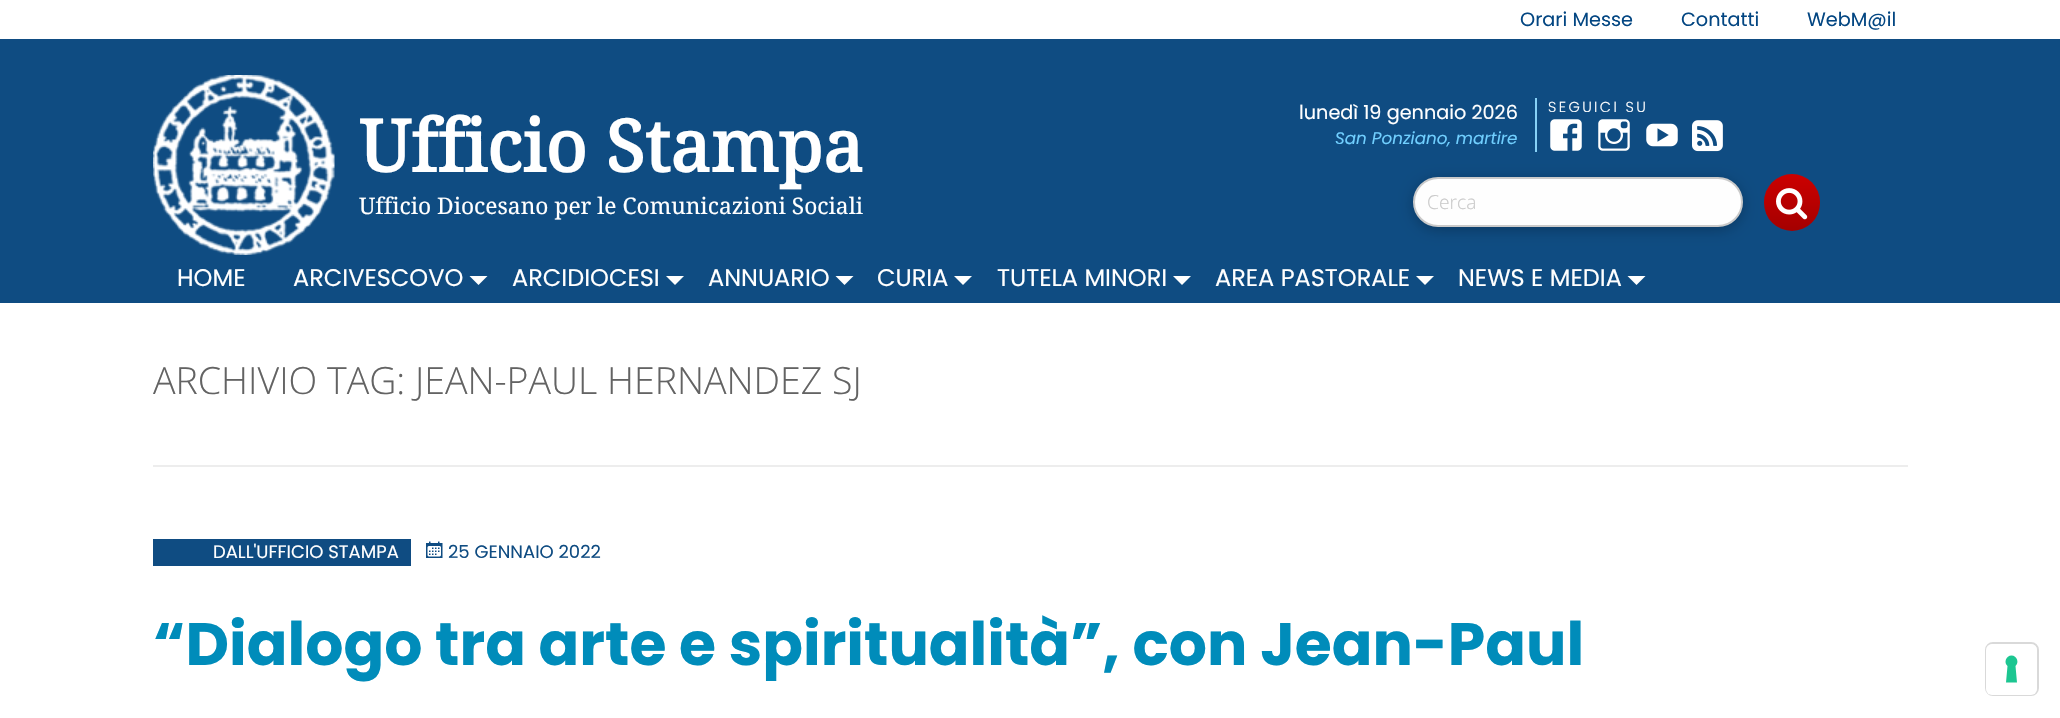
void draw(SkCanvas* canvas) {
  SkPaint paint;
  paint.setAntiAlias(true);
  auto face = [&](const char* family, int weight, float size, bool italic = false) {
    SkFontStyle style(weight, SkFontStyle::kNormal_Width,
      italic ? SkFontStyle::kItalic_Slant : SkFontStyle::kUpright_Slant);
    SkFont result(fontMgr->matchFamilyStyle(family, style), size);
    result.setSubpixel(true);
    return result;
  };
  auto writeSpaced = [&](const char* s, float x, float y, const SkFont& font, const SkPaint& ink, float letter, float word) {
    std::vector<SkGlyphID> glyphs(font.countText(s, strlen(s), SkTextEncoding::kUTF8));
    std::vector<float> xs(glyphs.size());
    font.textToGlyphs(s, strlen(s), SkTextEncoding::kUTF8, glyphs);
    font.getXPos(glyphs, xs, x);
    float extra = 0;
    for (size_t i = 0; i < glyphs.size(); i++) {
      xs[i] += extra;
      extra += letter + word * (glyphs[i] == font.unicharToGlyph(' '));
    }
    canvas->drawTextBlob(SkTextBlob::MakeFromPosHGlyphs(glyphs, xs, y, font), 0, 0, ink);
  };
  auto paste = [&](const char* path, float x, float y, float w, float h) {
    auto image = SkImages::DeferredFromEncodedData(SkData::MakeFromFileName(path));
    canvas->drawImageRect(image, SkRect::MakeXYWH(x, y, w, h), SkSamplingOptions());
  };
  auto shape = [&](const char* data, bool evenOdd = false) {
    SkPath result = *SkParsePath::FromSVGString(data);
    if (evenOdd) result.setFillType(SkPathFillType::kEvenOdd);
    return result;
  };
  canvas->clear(0xffffffff);
  paint.setColor(0xff0f4c82);
  canvas->drawRect(SkRect::MakeXYWH(0, 39, 2060, 264), paint);
  paste("img/1.png", 153, 75, 182, 180);
  paint.setColor(0xff87d1f6);
  canvas->drawRect(SkRect::MakeXYWH(1535, 98, 2, 54), paint);
  paste("img/2.png", 1550, 119, 32, 32);
  paste("img/3.png", 1598, 119, 32, 32);
  paste("img/4.png", 1646, 123, 32, 24);
  paste("img/5.png", 1692, 120, 31, 32);
  paint.setColor(0x3d000000);
  paint.setMaskFilter(SkMaskFilter::MakeBlur(kNormal_SkBlurStyle, 7));
  canvas->drawRoundRect(SkRect::MakeXYWH(1413, 180, 330, 50), 25, 25, paint);
  paint.setMaskFilter(nullptr);
  paint.setColor(0xfffefefe);
  canvas->drawRoundRect(SkRect::MakeXYWH(1414, 178, 328, 48), 24, 24, paint);
  paint.setStroke(true);
  paint.setStrokeWidth(2);
  paint.setColor(0xffcacaca);
  canvas->drawRoundRect(SkRect::MakeXYWH(1414, 178, 328, 48), 24, 24, paint);
  paint.setStroke(false);
  {
    const SkColor colors[] = {0xffcc0000, 0xffa40000};
    const float stops[] = {0, 1};
    const SkPoint ends[] = {{1792, 174}, {1792, 231}};
    paint.setShader(SkGradientShader::MakeLinear(ends, colors, stops, 2, SkTileMode::kClamp));
    paint.setAlpha(255);
  }
  canvas->drawRoundRect(SkRect::MakeXYWH(1764, 174, 56, 57), 28, 28, paint);
  paste("img/6.png", 1776, 188, 32, 32);
  paint.setShader(nullptr);
  paint.setColor(0xffffffff);
  canvas->drawPath(shape("M469.5 276H487.5L478.5 285Z"), paint);
  canvas->drawPath(shape("M666 276H684L675 285Z"), paint);
  canvas->drawPath(shape("M835.5 276H853.5L844.5 285Z"), paint);
  canvas->drawPath(shape("M954 276H972L963 285Z"), paint);
  canvas->drawPath(shape("M1173 276H1191L1182 285Z"), paint);
  canvas->drawPath(shape("M1416 276H1434L1425 285Z"), paint);
  canvas->drawPath(shape("M1627.5 276H1645.5L1636.5 285Z"), paint);
  paint.setColor(0xffededed);
  canvas->drawRect(SkRect::MakeXYWH(153, 465, 1755, 2), paint);
  paint.setColor(0xff0f4c82);
  canvas->drawRect(SkRect::MakeXYWH(153, 539, 258, 27), paint);
  paste("img/7.png", 426, 541, 17, 17);
  paint.setStroke(true);
  paint.setColor(0xffd9d9d9);
  canvas->drawRoundRect(SkRect::MakeXYWH(1986, 643, 52, 52), 7, 7, paint);
  paint.setStroke(false);
  paint.setColor(0xffffffff);
  canvas->drawRoundRect(SkRect::MakeXYWH(1986, 644, 51, 51), 6, 6, paint);
  paint.setColor(0xff1cc691);
  canvas->drawPath(shape("M2011.5 655.5C2017 655.5 2019.5 662.5 2015.5 666L2017 682.5H2006L2007.5 666C2003.5 662.5 2006 655.5 2011.5 655.5Z", true), paint);
  auto f0 = face("Poppins", 400, 19.25f);
  paint.setColor(0xff034682);
  {
    const struct { const char* s; float x, y; } items[] = {
      {"Orari Messe", 1520, 26},
      {"Contatti", 1681, 26},
      {"WebM@il", 1807, 26},
    };
    for (auto [s, x, y] : items) {
      canvas->drawString(s, x, y, f0, paint);
    }
  }
  auto f1 = face("Noto Serif", 700, 72);
  paint.setColor(0xffffffff);
  canvas->drawString("Ufficio Stampa", 359, 172, f1, paint);
  auto f2 = face("Noto Serif", 400, 22.8f);
  canvas->drawString("Ufficio Diocesano per le Comunicazioni Sociali", 359, 214, f2, paint);
  canvas->drawString("lunedì 19 gennaio 2026", 1299, 119, f0, paint);
  auto f3 = face("Poppins", 400, 16.75f, true);
  paint.setColor(0xff70cfff);
  canvas->drawString("San Ponziano, martire", 1335, 144, f3, paint);
  auto f4 = face("Poppins", 300, 14.5f);
  paint.setColor(0xffffffff);
  writeSpaced("SEGUICI SU", 1548, 112, f4, paint, 2.4f, 0);
  auto f5 = face("Open Sans", 300, 19.25f);
  paint.setColor(0xffcacaca);
  canvas->drawString("Cerca", 1427, 209, f5, paint);
  auto f6 = face("Poppins", 400, 24);
  paint.setColor(0xffffffff);
  {
    const struct { const char* s; float x, y; } items[] = {
      {"HOME", 177, 286},
      {"ARCIVESCOVO", 293, 286},
      {"ARCIDIOCESI", 512, 286},
      {"ANNUARIO", 708, 286},
      {"CURIA", 877, 286},
      {"TUTELA MINORI", 997, 286},
      {"AREA PASTORALE", 1215, 286},
      {"NEWS E MEDIA", 1458, 286},
    };
    for (auto [s, x, y] : items) {
      canvas->drawString(s, x, y, f6, paint);
    }
  }
  auto f7 = face("Open Sans", 300, 37.5f);
  paint.setColor(0xff636363);
  canvas->drawString("ARCHIVIO TAG: JEAN-PAUL HERNANDEZ SJ", 153, 394, f7, paint);
  auto f8 = face("Poppins", 400, 18);
  paint.setColor(0xffffffff);
  canvas->drawString("DALL'UFFICIO STAMPA", 213, 558, f8, paint);
  paint.setColor(0xff0f4c82);
  canvas->drawString("25 GENNAIO 2022", 448, 558, f8, paint);
  auto f9 = face("Poppins", 700, 60);
  paint.setColor(0xff008cba);
  canvas->drawString("“Dialogo tra arte e spiritualità”, con Jean-Paul", 153, 665, f9, paint);
}
